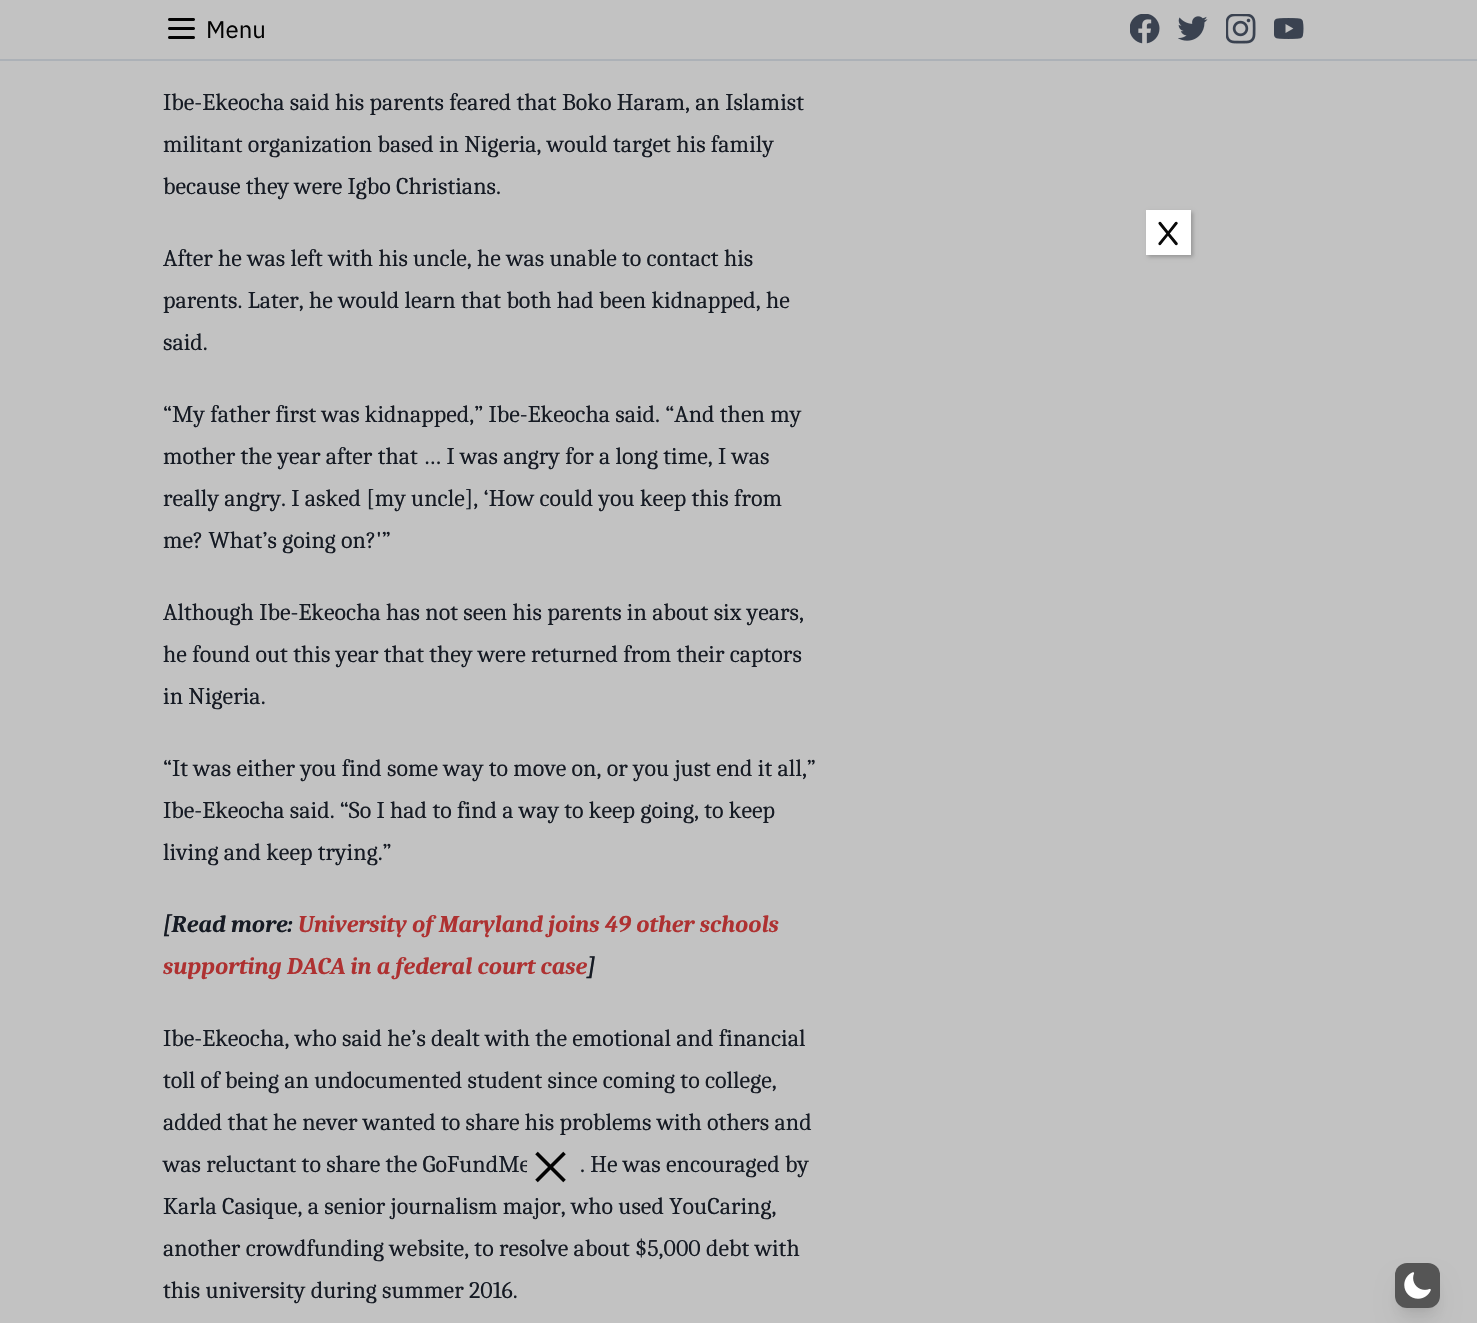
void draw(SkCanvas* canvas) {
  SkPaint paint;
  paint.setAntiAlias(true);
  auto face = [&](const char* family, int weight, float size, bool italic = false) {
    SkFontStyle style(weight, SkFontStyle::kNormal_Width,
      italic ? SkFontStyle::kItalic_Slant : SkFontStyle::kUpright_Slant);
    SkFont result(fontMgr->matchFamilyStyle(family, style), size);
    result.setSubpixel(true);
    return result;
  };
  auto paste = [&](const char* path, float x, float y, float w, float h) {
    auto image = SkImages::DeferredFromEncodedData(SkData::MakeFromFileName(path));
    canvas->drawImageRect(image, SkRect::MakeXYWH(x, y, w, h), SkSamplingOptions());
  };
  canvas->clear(0xffc2c2c2);
  paint.setColor(0xffacb1b7);
  canvas->drawRect(SkRect::MakeXYWH(0, 59, 1477, 2), paint);
  paste("img/1.png", 168, 18, 27, 21);
  paste("img/2.png", 1130, 14, 30, 30);
  paste("img/3.png", 1178, 16, 30, 25);
  paste("img/4.png", 1226, 14, 30, 30);
  paste("img/5.png", 1274, 18, 30, 21);
  paint.setColor(0x3b020202);
  paint.setMaskFilter(SkMaskFilter::MakeBlur(kNormal_SkBlurStyle, 2));
  canvas->drawRect(SkRect::MakeXYWH(1148, 212, 45, 45), paint);
  paint.setMaskFilter(nullptr);
  paint.setColor(0xffffffff);
  canvas->drawRect(SkRect::MakeXYWH(1146, 210, 45, 45), paint);
  paste("img/6.png", 535, 1151, 31, 32);
  paint.setColor(0x1a000000);
  paint.setMaskFilter(SkMaskFilter::MakeBlur(kNormal_SkBlurStyle, 4.5f));
  canvas->drawRoundRect(SkRect::MakeXYWH(1401, 1275, 33, 33), 6, 6, paint);
  paint.setMaskFilter(nullptr);
  paint.setMaskFilter(SkMaskFilter::MakeBlur(kNormal_SkBlurStyle, 11));
  canvas->drawRoundRect(SkRect::MakeXYWH(1400, 1283, 36, 36), 8, 8, paint);
  paint.setMaskFilter(nullptr);
  paint.setColor(0xff555555);
  canvas->drawRoundRect(SkRect::MakeXYWH(1395, 1263, 45, 45), 12, 12, paint);
  paste("img/7.png", 1404, 1272, 27, 27);
  auto f0 = face("IBM Plex Sans", 400, 24);
  paint.setColor(0xff030303);
  canvas->drawString("Menu", 206, 38, f0, paint);
  auto f1 = face("Caladea", 400, 24);
  paint.setColor(0xff161b24);
  {
    const struct { const char* s; float x, y; } items[] = {
      {"Ibe-Ekeocha said his parents feared that Boko Haram, an Islamist", 163, 110},
      {"militant organization based in Nigeria, would target his family", 163, 152},
      {"because they were Igbo Christians.", 163, 194},
      {"After he was left with his uncle, he was unable to contact his", 163, 266},
      {"parents. Later, he would learn that both had been kidnapped, he", 163, 308},
      {"said.", 163, 350},
      {"“My father first was kidnapped,” Ibe-Ekeocha said. “And then my", 163, 422},
      {"mother the year after that … I was angry for a long time, I was", 163, 464},
      {"really angry. I asked [my uncle], ‘How could you keep this from", 163, 506},
      {"me? What’s going on?'”", 163, 548},
      {"Although Ibe-Ekeocha has not seen his parents in about six years,", 163, 620},
      {"he found out this year that they were returned from their captors", 163, 662},
      {"in Nigeria.", 163, 704},
      {"“It was either you find some way to move on, or you just end it all,”", 163, 776},
      {"Ibe-Ekeocha said. “So I had to find a way to keep going, to keep", 163, 818},
      {"living and keep trying.”", 163, 860},
    };
    for (auto [s, x, y] : items) {
      canvas->drawString(s, x, y, f1, paint);
    }
  }
  auto f2 = face("Caladea", 700, 24, true);
  canvas->drawString("[Read more:", 163, 932, f2, paint);
  paint.setColor(0xffae3131);
  canvas->drawString("University of Maryland joins 49 other schools", 298, 932, f2, paint);
  canvas->drawString("supporting DACA in a federal court case", 163, 974, f2, paint);
  paint.setColor(0xff161b24);
  canvas->drawString("]", 587, 974, f2, paint);
  {
    const struct { const char* s; float x, y; } items[] = {
      {"Ibe-Ekeocha, who said he’s dealt with the emotional and financial", 163, 1046},
      {"toll of being an undocumented student since coming to college,", 163, 1088},
      {"added that he never wanted to share his problems with others and", 163, 1130},
      {"was reluctant to share the GoFundMe", 163, 1172},
      {". He was encouraged by", 580, 1172},
      {"Karla Casique, a senior journalism major, who used YouCaring,", 163, 1214},
      {"another crowdfunding website, to resolve about $5,000 debt with", 163, 1256},
      {"this university during summer 2016.", 163, 1298},
    };
    for (auto [s, x, y] : items) {
      canvas->drawString(s, x, y, f1, paint);
    }
  }
  auto f3 = face("Varela Round", 400, 33);
  paint.setColor(0xff0a0a0a);
  canvas->drawString("X", 1157, 245, f3, paint);
  paint.setColor(0xffc2c2c2);
  canvas->drawRect(SkRect::MakeXYWH(527, 1161, 3, 11), paint);
}
